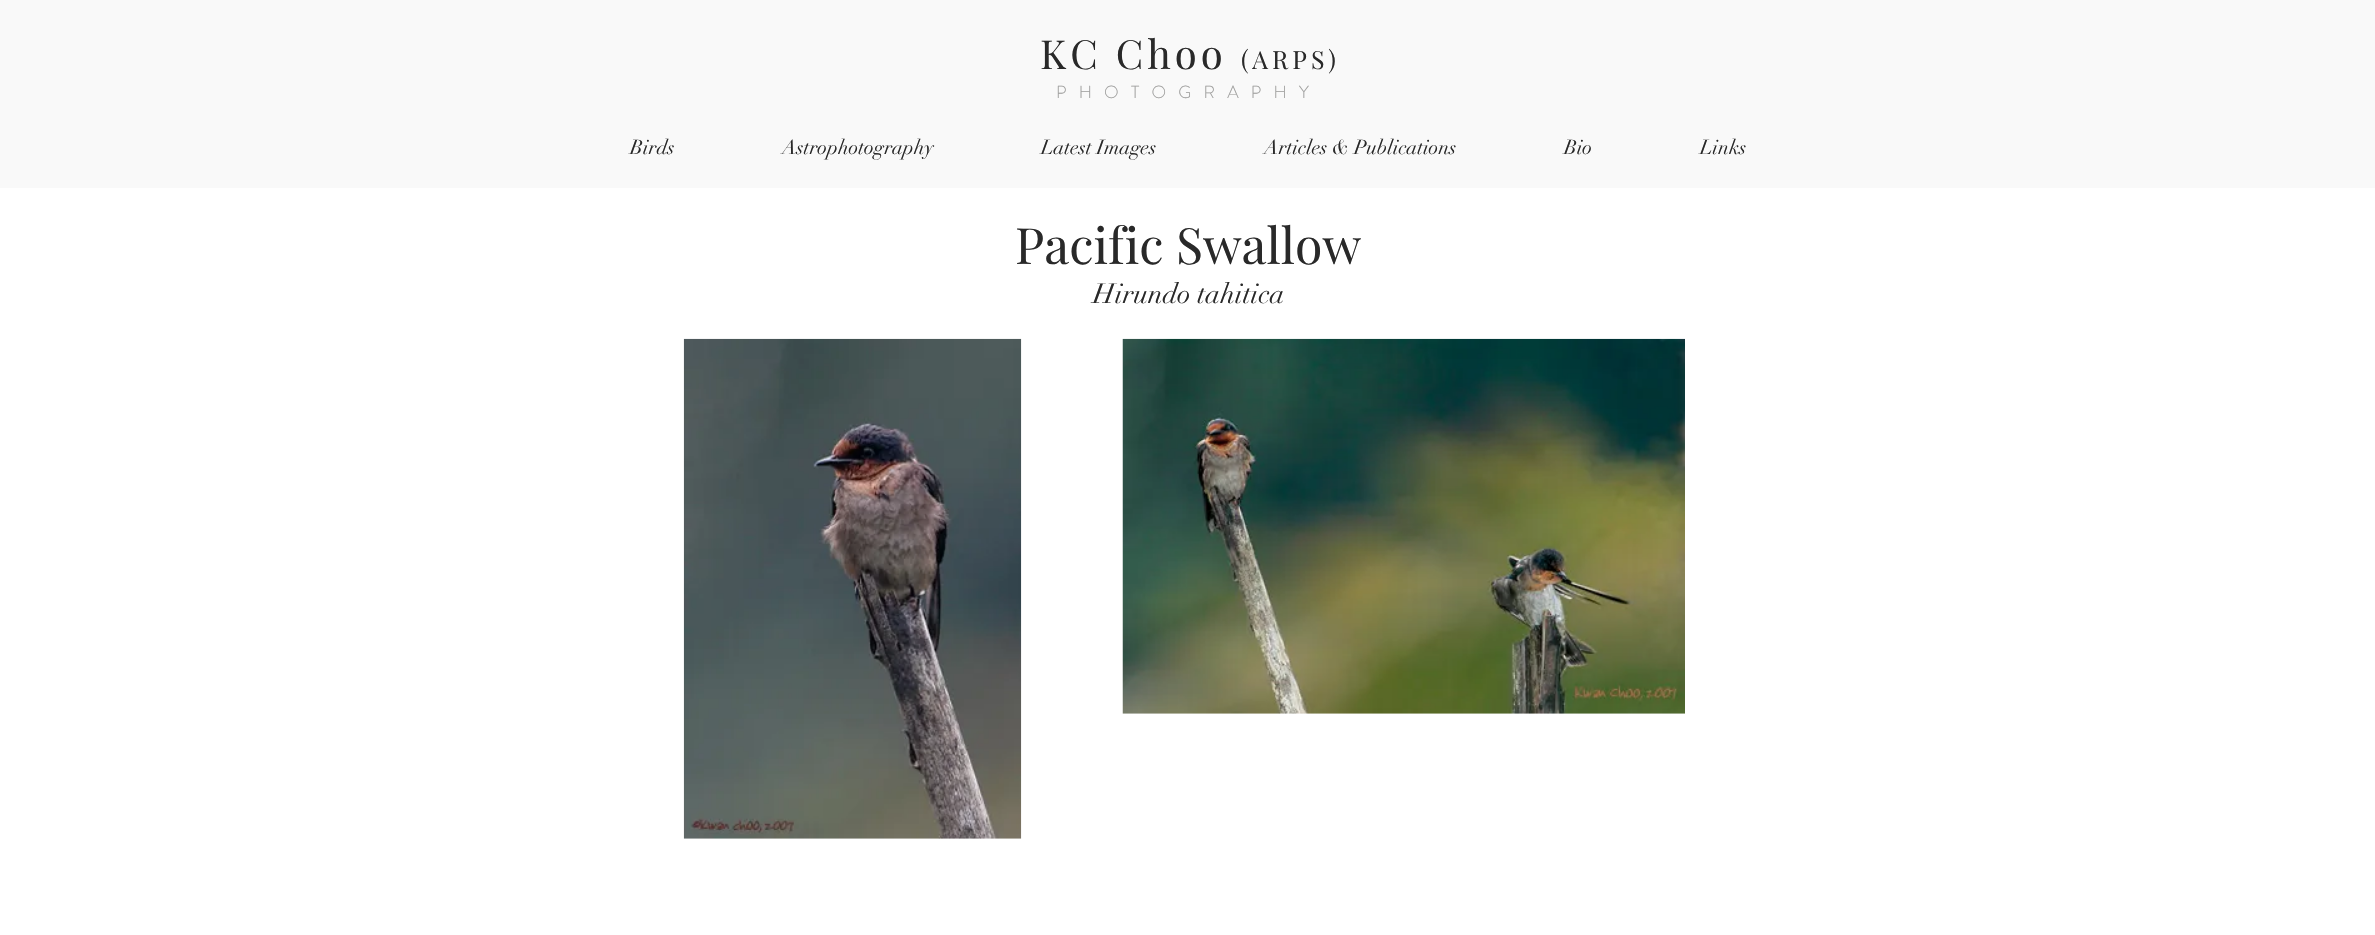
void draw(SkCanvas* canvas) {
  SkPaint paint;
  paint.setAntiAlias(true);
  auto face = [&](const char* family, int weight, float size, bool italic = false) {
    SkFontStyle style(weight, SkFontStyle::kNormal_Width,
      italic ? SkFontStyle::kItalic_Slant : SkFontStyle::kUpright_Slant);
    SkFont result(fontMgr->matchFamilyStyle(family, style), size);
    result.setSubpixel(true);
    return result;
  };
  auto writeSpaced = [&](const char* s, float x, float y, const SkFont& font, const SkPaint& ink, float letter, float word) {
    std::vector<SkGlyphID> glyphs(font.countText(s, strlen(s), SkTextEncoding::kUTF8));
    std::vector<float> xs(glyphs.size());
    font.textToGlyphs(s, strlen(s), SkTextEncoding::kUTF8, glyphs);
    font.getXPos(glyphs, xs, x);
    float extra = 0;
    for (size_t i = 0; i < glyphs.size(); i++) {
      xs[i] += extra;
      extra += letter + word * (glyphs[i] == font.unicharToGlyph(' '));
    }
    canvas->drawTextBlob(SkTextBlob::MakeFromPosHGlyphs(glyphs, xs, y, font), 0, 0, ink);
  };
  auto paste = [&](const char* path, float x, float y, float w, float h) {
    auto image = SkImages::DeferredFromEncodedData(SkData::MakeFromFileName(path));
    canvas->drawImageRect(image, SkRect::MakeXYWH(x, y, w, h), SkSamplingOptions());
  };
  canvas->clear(0xffffffff);
  paint.setColor(0xfff9f9f9);
  canvas->drawRect(SkRect::MakeXYWH(0, 0, 2375, 188), paint);
  paste("img/1.png", 683, 338, 339, 501);
  paste("img/2.png", 1122, 338, 563, 376);
  auto f0 = face("Playfair Display", 400, 40);
  paint.setColor(0xff292929);
  writeSpaced("KC Choo", 1040, 69, f0, paint, 4, 0);
  auto f1 = face("Playfair Display", 400, 25);
  writeSpaced("(ARPS)", 1241, 69, f1, paint, 4, 0);
  auto f2 = face("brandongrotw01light", 300, 17.5f);
  paint.setColor(0xffa0a09f);
  writeSpaced("PHOTOGRAPHY", 1056, 98, f2, paint, 12.25f, 0);
  auto f3 = face("didot", 400, 20);
  paint.setColor(0xff292929);
  {
    const struct { const char* s; float x, y; } items[] = {
      {"Birds", 630, 154},
      {"Astrophotography", 782, 154},
      {"Latest Images", 1041, 154},
      {"Articles & Publications", 1264, 154},
      {"Bio", 1564, 154},
      {"Links", 1700, 154},
    };
    for (auto [s, x, y] : items) {
      canvas->drawString(s, x, y, f3, paint);
    }
  }
  auto f4 = face("Playfair Display", 400, 50);
  canvas->drawString("Pacific Swallow", 1015, 264, f4, paint);
  auto f5 = face("didot", 400, 27.5f);
  canvas->drawString("Hirundo tahitica", 1093, 303, f5, paint);
}
